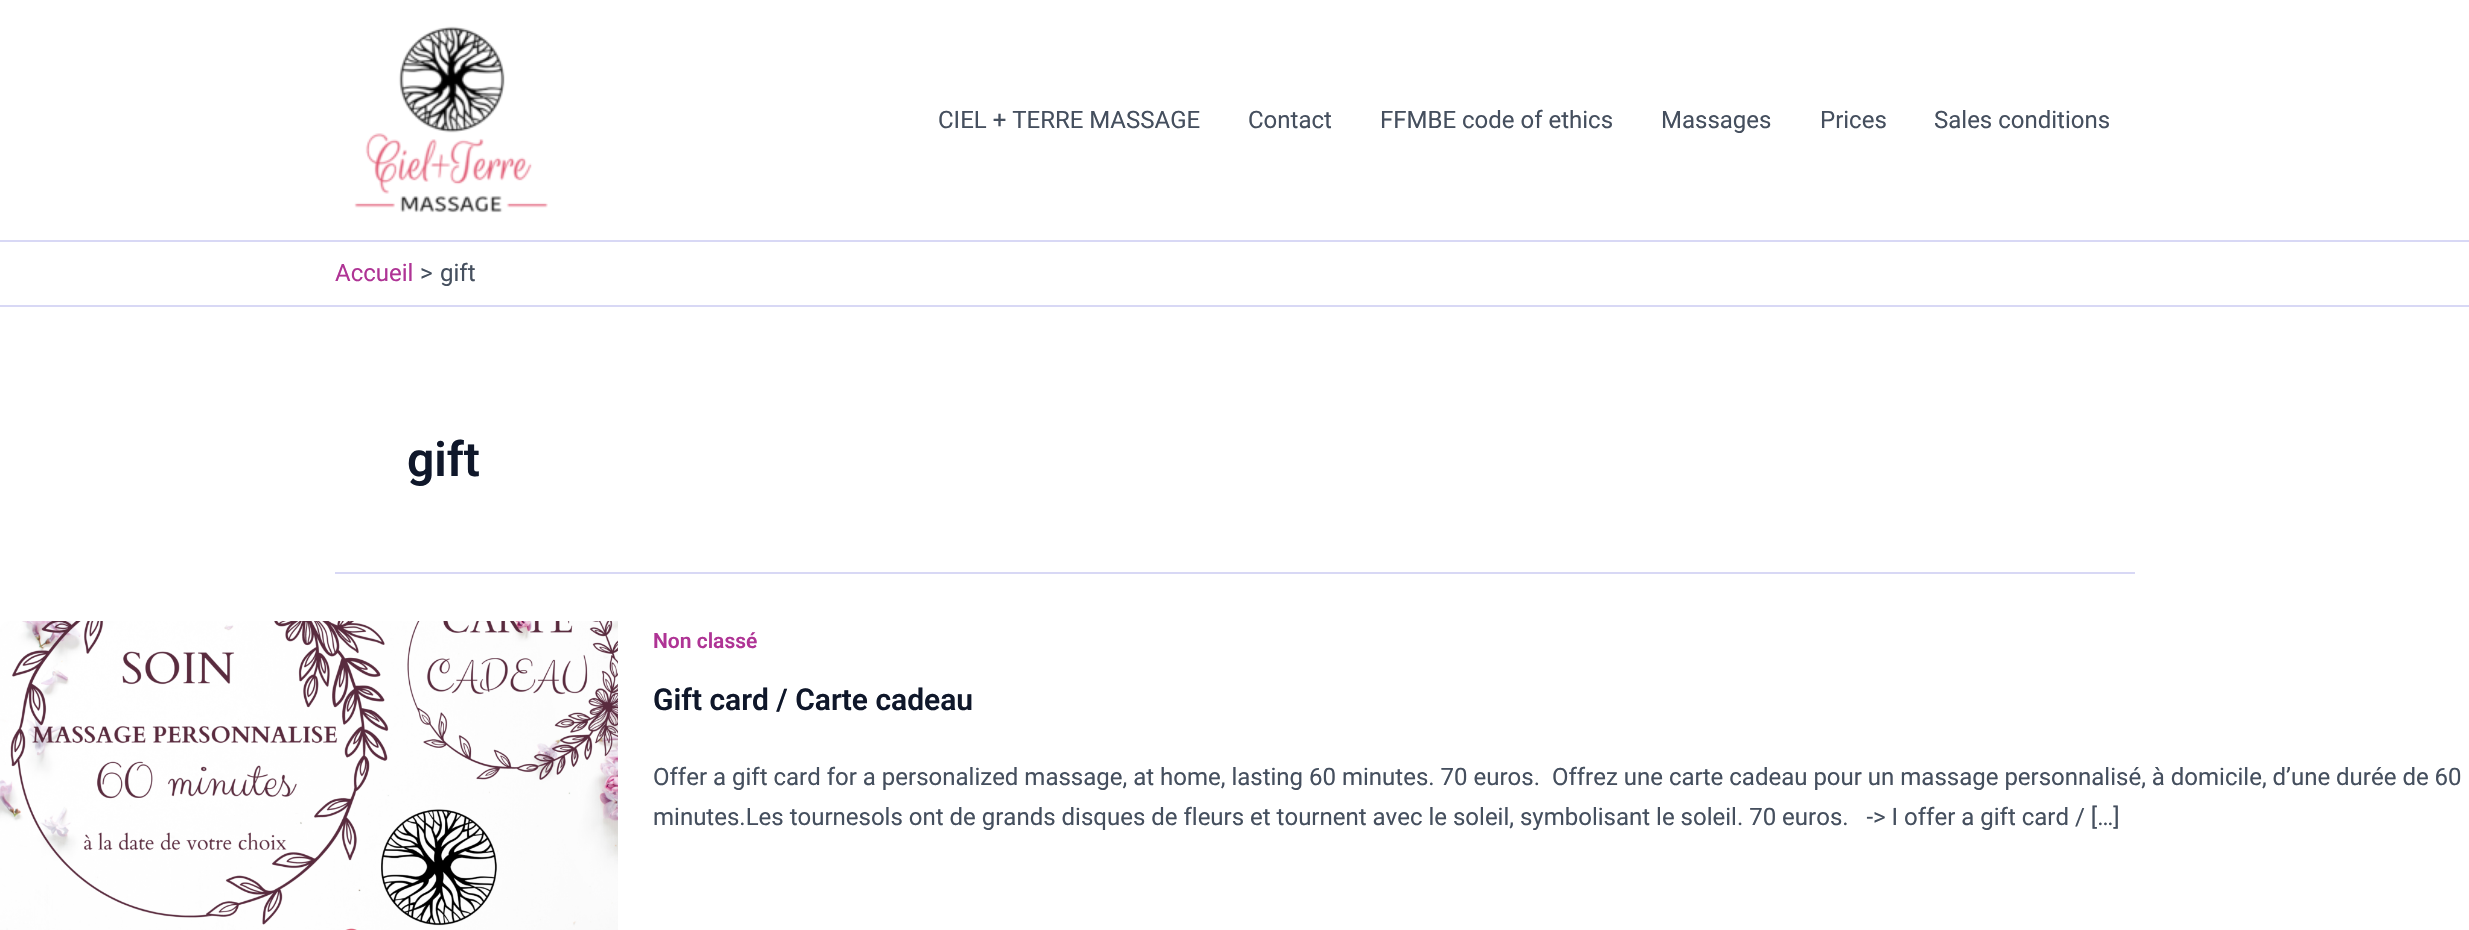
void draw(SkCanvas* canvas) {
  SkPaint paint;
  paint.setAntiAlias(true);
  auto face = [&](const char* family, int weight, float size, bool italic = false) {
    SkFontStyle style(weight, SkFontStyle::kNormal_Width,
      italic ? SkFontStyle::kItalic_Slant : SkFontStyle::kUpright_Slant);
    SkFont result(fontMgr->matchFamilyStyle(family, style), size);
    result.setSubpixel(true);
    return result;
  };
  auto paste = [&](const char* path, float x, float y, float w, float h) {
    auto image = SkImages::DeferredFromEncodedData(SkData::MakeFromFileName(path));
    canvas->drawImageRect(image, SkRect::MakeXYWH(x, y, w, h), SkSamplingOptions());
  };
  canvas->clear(0xffffffff);
  paint.setColor(0xffd8d8f5);
  canvas->drawRect(SkRect::MakeXYWH(0, 240, 2469, 2), paint);
  paste("img/1.png", 354, 26, 194, 187);
  canvas->drawRect(SkRect::MakeXYWH(0, 305, 2469, 2), paint);
  canvas->drawRect(SkRect::MakeXYWH(335, 572, 1800, 2), paint);
  paste("img/2.png", 0, 621, 618, 309);
  auto f0 = face("Roboto", 400, 24);
  paint.setColor(0xff454f5e);
  {
    const struct { const char* s; float x, y; } items[] = {
      {"CIEL + TERRE MASSAGE", 938, 128},
      {"Contact", 1248, 128},
      {"FFMBE code of ethics", 1380, 128},
      {"Massages", 1661, 128},
      {"Prices", 1820, 128},
      {"Sales conditions", 1934, 128},
    };
    for (auto [s, x, y] : items) {
      canvas->drawString(s, x, y, f0, paint);
    }
  }
  paint.setColor(0xffaf3495);
  canvas->drawString("Accueil", 335, 281, f0, paint);
  paint.setColor(0xff454f5e);
  canvas->drawString(">", 420, 281, f0, paint);
  canvas->drawString("gift", 440, 281, f0, paint);
  auto f1 = face("Roboto", 600, 48);
  paint.setColor(0xff0f172a);
  canvas->drawString("gift", 407, 476, f1, paint);
  auto f2 = face("Roboto", 600, 21);
  paint.setColor(0xffaf3495);
  canvas->drawString("Non classé", 653, 648, f2, paint);
  auto f3 = face("Roboto", 600, 30);
  paint.setColor(0xff0f172a);
  canvas->drawString("Gift card / Carte cadeau", 653, 710, f3, paint);
  paint.setColor(0xff454f5e);
  canvas->drawString("Offer a gift card for a personalized massage, at home, lasting 60 minutes. 70 euros.  Offrez une carte cadeau pour un massage personnalisé, à domicile, d’une durée de 60", 653, 785, f0, paint);
  canvas->drawString("minutes.Les tournesols ont de grands disques de fleurs et tournent avec le soleil, symbolisant le soleil. 70 euros.   -> I offer a gift card / […]", 653, 825, f0, paint);
}
